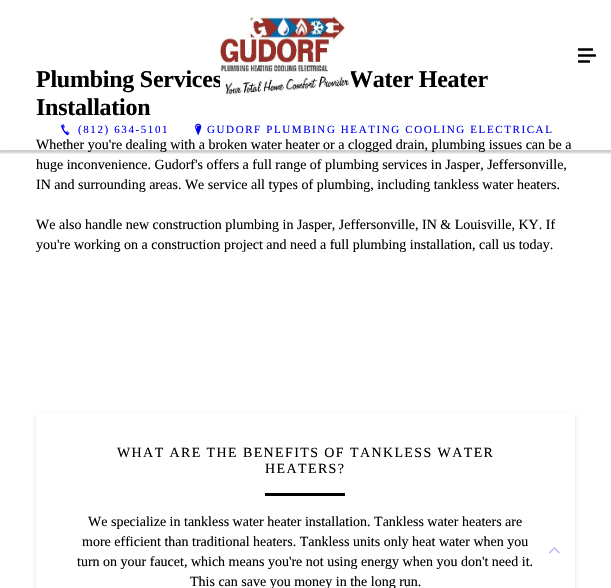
void draw(SkCanvas* canvas) {
  SkPaint paint;
  paint.setAntiAlias(true);
  auto face = [&](const char* family, int weight, float size, bool italic = false) {
    SkFontStyle style(weight, SkFontStyle::kNormal_Width,
      italic ? SkFontStyle::kItalic_Slant : SkFontStyle::kUpright_Slant);
    SkFont result(fontMgr->matchFamilyStyle(family, style), size);
    result.setSubpixel(true);
    return result;
  };
  auto writeSpaced = [&](const char* s, float x, float y, const SkFont& font, const SkPaint& ink, float letter, float word) {
    std::vector<SkGlyphID> glyphs(font.countText(s, strlen(s), SkTextEncoding::kUTF8));
    std::vector<float> xs(glyphs.size());
    font.textToGlyphs(s, strlen(s), SkTextEncoding::kUTF8, glyphs);
    font.getXPos(glyphs, xs, x);
    float extra = 0;
    for (size_t i = 0; i < glyphs.size(); i++) {
      xs[i] += extra;
      extra += letter + word * (glyphs[i] == font.unicharToGlyph(' '));
    }
    canvas->drawTextBlob(SkTextBlob::MakeFromPosHGlyphs(glyphs, xs, y, font), 0, 0, ink);
  };
  auto paste = [&](const char* path, float x, float y, float w, float h) {
    auto image = SkImages::DeferredFromEncodedData(SkData::MakeFromFileName(path));
    canvas->drawImageRect(image, SkRect::MakeXYWH(x, y, w, h), SkSamplingOptions());
  };
  auto shape = [&](const char* data, bool evenOdd = false) {
    SkPath result = *SkParsePath::FromSVGString(data);
    if (evenOdd) result.setFillType(SkPathFillType::kEvenOdd);
    return result;
  };
  canvas->clear(0xffffffff);
  canvas->save();
  canvas->clipPath(shape("M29 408H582V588H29ZM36 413H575V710H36Z", true), true);
  paint.setColor(0x1f000000);
  paint.setMaskFilter(SkMaskFilter::MakeBlur(kNormal_SkBlurStyle, 2));
  canvas->drawRect(SkRect::MakeXYWH(36, 415, 539, 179), paint);
  paint.setMaskFilter(nullptr);
  canvas->restore();
  paint.setColor(0xff000000);
  canvas->drawRect(SkRect::MakeXYWH(265, 493, 80, 3), paint);
  paste("img/2.png", 578, 48, 18, 15);
  canvas->save();
  canvas->clipRect(SkRect::MakeXYWH(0, 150, 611, 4));
  paint.setColor(0x33000000);
  paint.setMaskFilter(SkMaskFilter::MakeBlur(kNormal_SkBlurStyle, 1));
  canvas->drawRect(SkRect::MakeXYWH(-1, 113, 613, 40), paint);
  paint.setMaskFilter(nullptr);
  canvas->restore();
  paste("img/3.png", 61, 124, 9, 12);
  paste("img/4.png", 195, 123, 7, 13);
  auto f0 = face("Liberation Serif", 700, 24);
  paint.setColor(0xff000000);
  {
    const struct { const char* s; float x, y; } items[] = {
      {"Plumbing Services", 36, 87},
      {"Water Heater", 349, 87},
      {"Installation", 36, 115},
    };
    for (auto [s, x, y] : items) {
      writeSpaced(s, x, y, f0, paint, -0.25f, 0);
    }
  }
  auto f1 = face("Liberation Serif", 400, 14);
  {
    const struct { const char* s; float x, y; } items[] = {
      {"Whether you're dealing with a broken water heater or a clogged drain, plumbing issues can be a", 36, 149},
      {"huge inconvenience. Gudorf's offers a full range of plumbing services in Jasper, Jeffersonville,", 36, 169},
      {"IN and surrounding areas. We service all types of plumbing, including tankless water heaters.", 36, 189},
      {"We also handle new construction plumbing in Jasper, Jeffersonville, IN & Louisville, KY. If", 36, 229},
      {"you're working on a construction project and need a full plumbing installation, call us today.", 36, 249},
    };
    for (auto [s, x, y] : items) {
      canvas->drawString(s, x, y, f1, paint);
    }
  }
  writeSpaced("WHAT ARE THE BENEFITS OF TANKLESS WATER", 117, 457, f1, paint, 1.4f, 0);
  writeSpaced("HEATERS?", 265, 473, f1, paint, 1.4f, 0);
  {
    const struct { const char* s; float x, y; } items[] = {
      {"We specialize in tankless water heater installation. Tankless water heaters are", 88, 526},
      {"more efficient than traditional heaters. Tankless units only heat water when you", 82, 546},
      {"turn on your faucet, which means you're not using energy when you don't need it.", 77, 566},
      {"This can save you money in the long run.", 190, 586},
    };
    for (auto [s, x, y] : items) {
      canvas->drawString(s, x, y, f1, paint);
    }
  }
  paste("img/1.png", 220, 16, 131, 79);
  auto f2 = face("Liberation Serif", 400, 11);
  paint.setColor(0xff0000ee);
  writeSpaced("(812) 634-5101", 78, 133, f2, paint, 1.6f, 0);
  writeSpaced("GUDORF PLUMBING HEATING COOLING ELECTRICAL", 207, 133, f2, paint, 1.6f, 0);
  auto f3 = face("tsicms", 400, 14);
  paint.setColor(0xffb3b3fa);
  canvas->drawString("+", 549, 556, f3, paint);
}
